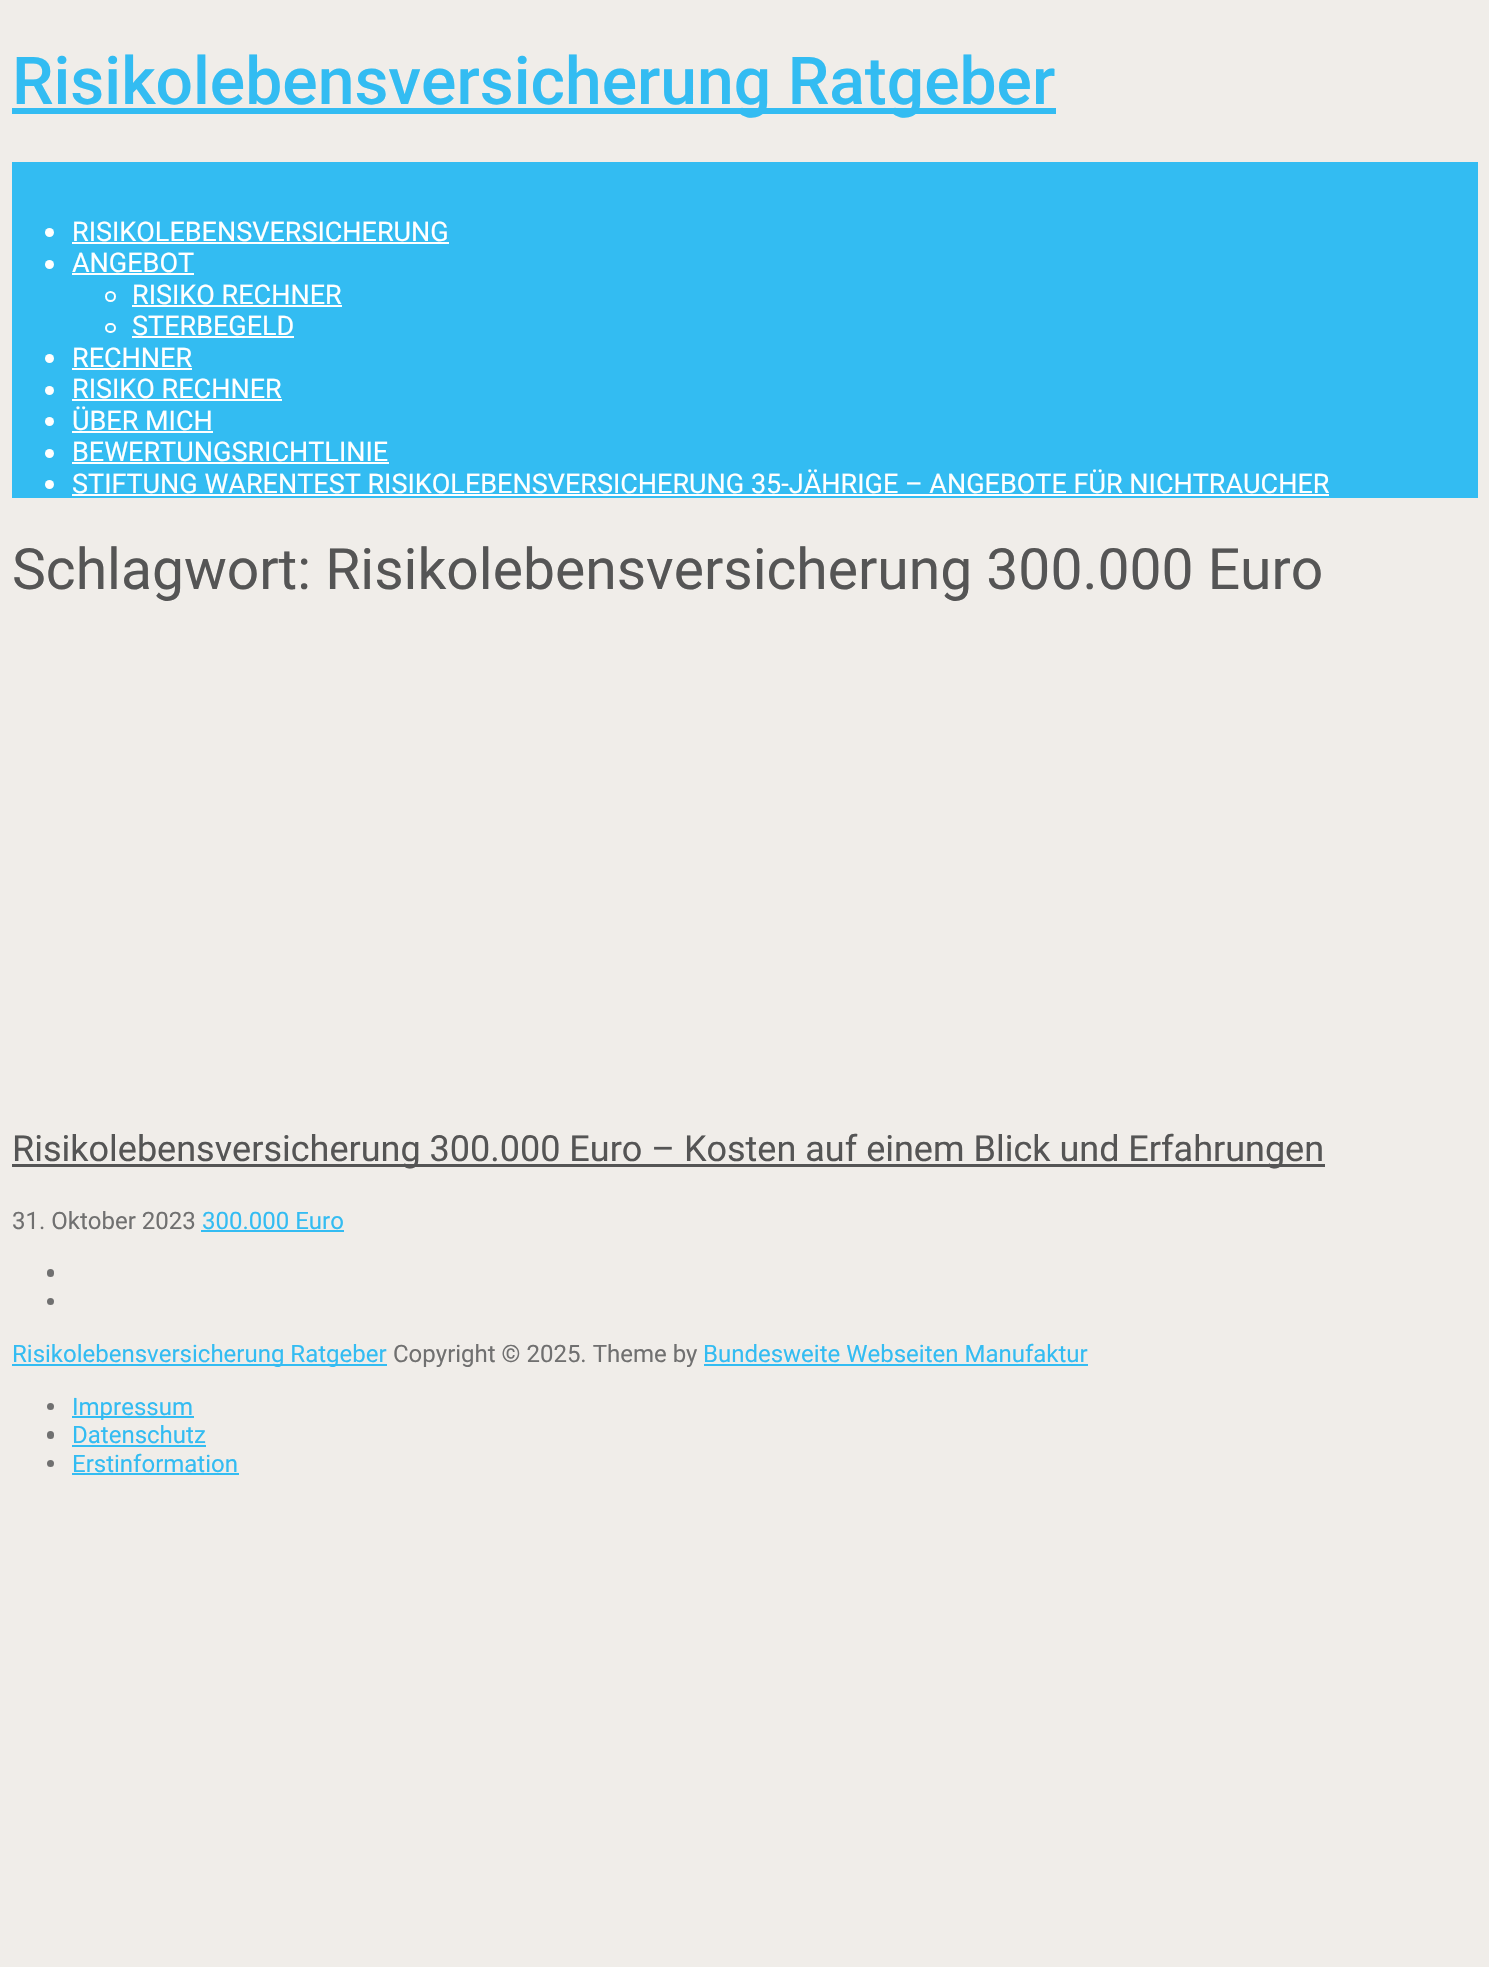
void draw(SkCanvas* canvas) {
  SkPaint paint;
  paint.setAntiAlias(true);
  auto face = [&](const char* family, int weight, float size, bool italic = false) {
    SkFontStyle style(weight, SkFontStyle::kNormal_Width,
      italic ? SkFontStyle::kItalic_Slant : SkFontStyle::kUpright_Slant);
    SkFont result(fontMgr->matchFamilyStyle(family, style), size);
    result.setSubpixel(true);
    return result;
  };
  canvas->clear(0xfff0ede9);
  paint.setColor(0xff33bcf2);
  canvas->drawRect(SkRect::MakeXYWH(12, 108, 1044, 6), paint);
  canvas->drawRect(SkRect::MakeXYWH(12, 162, 1466, 336), paint);
  paint.setColor(0xffffffff);
  canvas->drawCircle(49.5f, 232.5f, 4.5f, paint);
  canvas->drawRect(SkRect::MakeXYWH(72, 242, 377, 2), paint);
  canvas->drawCircle(49.5f, 264.5f, 4.5f, paint);
  canvas->drawRect(SkRect::MakeXYWH(72, 273, 122, 2), paint);
  paint.setStroke(true);
  paint.setStrokeWidth(2);
  canvas->drawCircle(110.5f, 296.5f, 4.5f, paint);
  paint.setStroke(false);
  canvas->drawRect(SkRect::MakeXYWH(132, 305, 210, 2), paint);
  paint.setStroke(true);
  canvas->drawRoundRect(SkRect::MakeXYWH(106, 324, 9, 8), 4, 4, paint);
  paint.setStroke(false);
  canvas->drawRect(SkRect::MakeXYWH(132, 336, 162, 2), paint);
  canvas->drawCircle(49.5f, 358.5f, 4.5f, paint);
  canvas->drawRect(SkRect::MakeXYWH(72, 368, 120, 2), paint);
  canvas->drawCircle(49.5f, 390.5f, 4.5f, paint);
  canvas->drawRect(SkRect::MakeXYWH(72, 399, 210, 2), paint);
  canvas->drawCircle(49.5f, 421.5f, 4.5f, paint);
  canvas->drawRect(SkRect::MakeXYWH(72, 431, 141, 2), paint);
  canvas->drawCircle(49.5f, 453.5f, 4.5f, paint);
  canvas->drawRect(SkRect::MakeXYWH(72, 462, 317, 2), paint);
  canvas->drawCircle(49.5f, 484.5f, 4.5f, paint);
  {
    const struct { float x, y, w, h; SkColor color; } items[] = {
      {72, 494, 1257, 2, 0xffffffff},
      {12, 1164, 1313, 3, 0xff555555},
      {201, 1230, 143, 2, 0xff33bcf2},
    };
    for (auto [x, y, w, h, color] : items) {
      paint.setColor(color);
      canvas->drawRect(SkRect::MakeXYWH(x, y, w, h), paint);
    }
  }
  paint.setColor(0xff707070);
  canvas->drawRoundRect(SkRect::MakeXYWH(47, 1269, 7, 8), 3.5f, 3.5f, paint);
  canvas->drawCircle(50.5f, 1301.5f, 3.5f, paint);
  paint.setColor(0xff33bcf2);
  canvas->drawRect(SkRect::MakeXYWH(12, 1364, 375, 2), paint);
  canvas->drawRect(SkRect::MakeXYWH(704, 1364, 384, 2), paint);
  paint.setColor(0xff707070);
  canvas->drawCircle(50.5f, 1406.5f, 3.5f, paint);
  paint.setColor(0xff33bcf2);
  canvas->drawRect(SkRect::MakeXYWH(72, 1416, 122, 2), paint);
  paint.setColor(0xff707070);
  canvas->drawRoundRect(SkRect::MakeXYWH(47, 1431, 7, 8), 3.5f, 3.5f, paint);
  paint.setColor(0xff33bcf2);
  canvas->drawRect(SkRect::MakeXYWH(72, 1445, 134, 2), paint);
  paint.setColor(0xff707070);
  canvas->drawCircle(50.5f, 1463.5f, 3.5f, paint);
  paint.setColor(0xff33bcf2);
  canvas->drawRect(SkRect::MakeXYWH(72, 1473, 167, 2), paint);
  auto f0 = face("Roboto", 500, 66);
  canvas->drawString("Risikolebensversicherung Ratgeber", 12, 104, f0, paint);
  auto f1 = face("Roboto", 400, 27);
  paint.setColor(0xffffffff);
  {
    const struct { const char* s; float x, y; } items[] = {
      {"RISIKOLEBENSVERSICHERUNG", 72, 241},
      {"ANGEBOT", 72, 272},
      {"RISIKO RECHNER", 132, 304},
      {"STERBEGELD", 132, 335},
      {"RECHNER", 72, 367},
      {"RISIKO RECHNER", 72, 398},
      {"ÜBER MICH", 72, 430},
      {"BEWERTUNGSRICHTLINIE", 72, 461},
      {"STIFTUNG WARENTEST RISIKOLEBENSVERSICHERUNG 35-JÄHRIGE – ANGEBOTE FÜR NICHTRAUCHER", 72, 493},
    };
    for (auto [s, x, y] : items) {
      canvas->drawString(s, x, y, f1, paint);
    }
  }
  auto f2 = face("Roboto", 400, 57);
  paint.setColor(0xff555555);
  canvas->drawString("Schlagwort: Risikolebensversicherung 300.000 Euro", 12, 589, f2, paint);
  auto f3 = face("Roboto", 400, 36);
  canvas->drawString("Risikolebensversicherung 300.000 Euro – Kosten auf einem Blick und Erfahrungen", 12, 1161, f3, paint);
  auto f4 = face("Roboto", 400, 24);
  paint.setColor(0xff707070);
  canvas->drawString("31. Oktober 2023", 12, 1229, f4, paint);
  paint.setColor(0xff33bcf2);
  canvas->drawString("300.000 Euro", 202, 1229, f4, paint);
  canvas->drawString("Risikolebensversicherung Ratgeber", 12, 1362, f4, paint);
  paint.setColor(0xff707070);
  canvas->drawString("Copyright © 2025. Theme by", 393, 1362, f4, paint);
  paint.setColor(0xff33bcf2);
  {
    const struct { const char* s; float x, y; } items[] = {
      {"Bundesweite Webseiten Manufaktur", 703, 1362},
      {"Impressum", 72, 1415},
      {"Datenschutz", 72, 1443},
      {"Erstinformation", 72, 1472},
    };
    for (auto [s, x, y] : items) {
      canvas->drawString(s, x, y, f4, paint);
    }
  }
}
